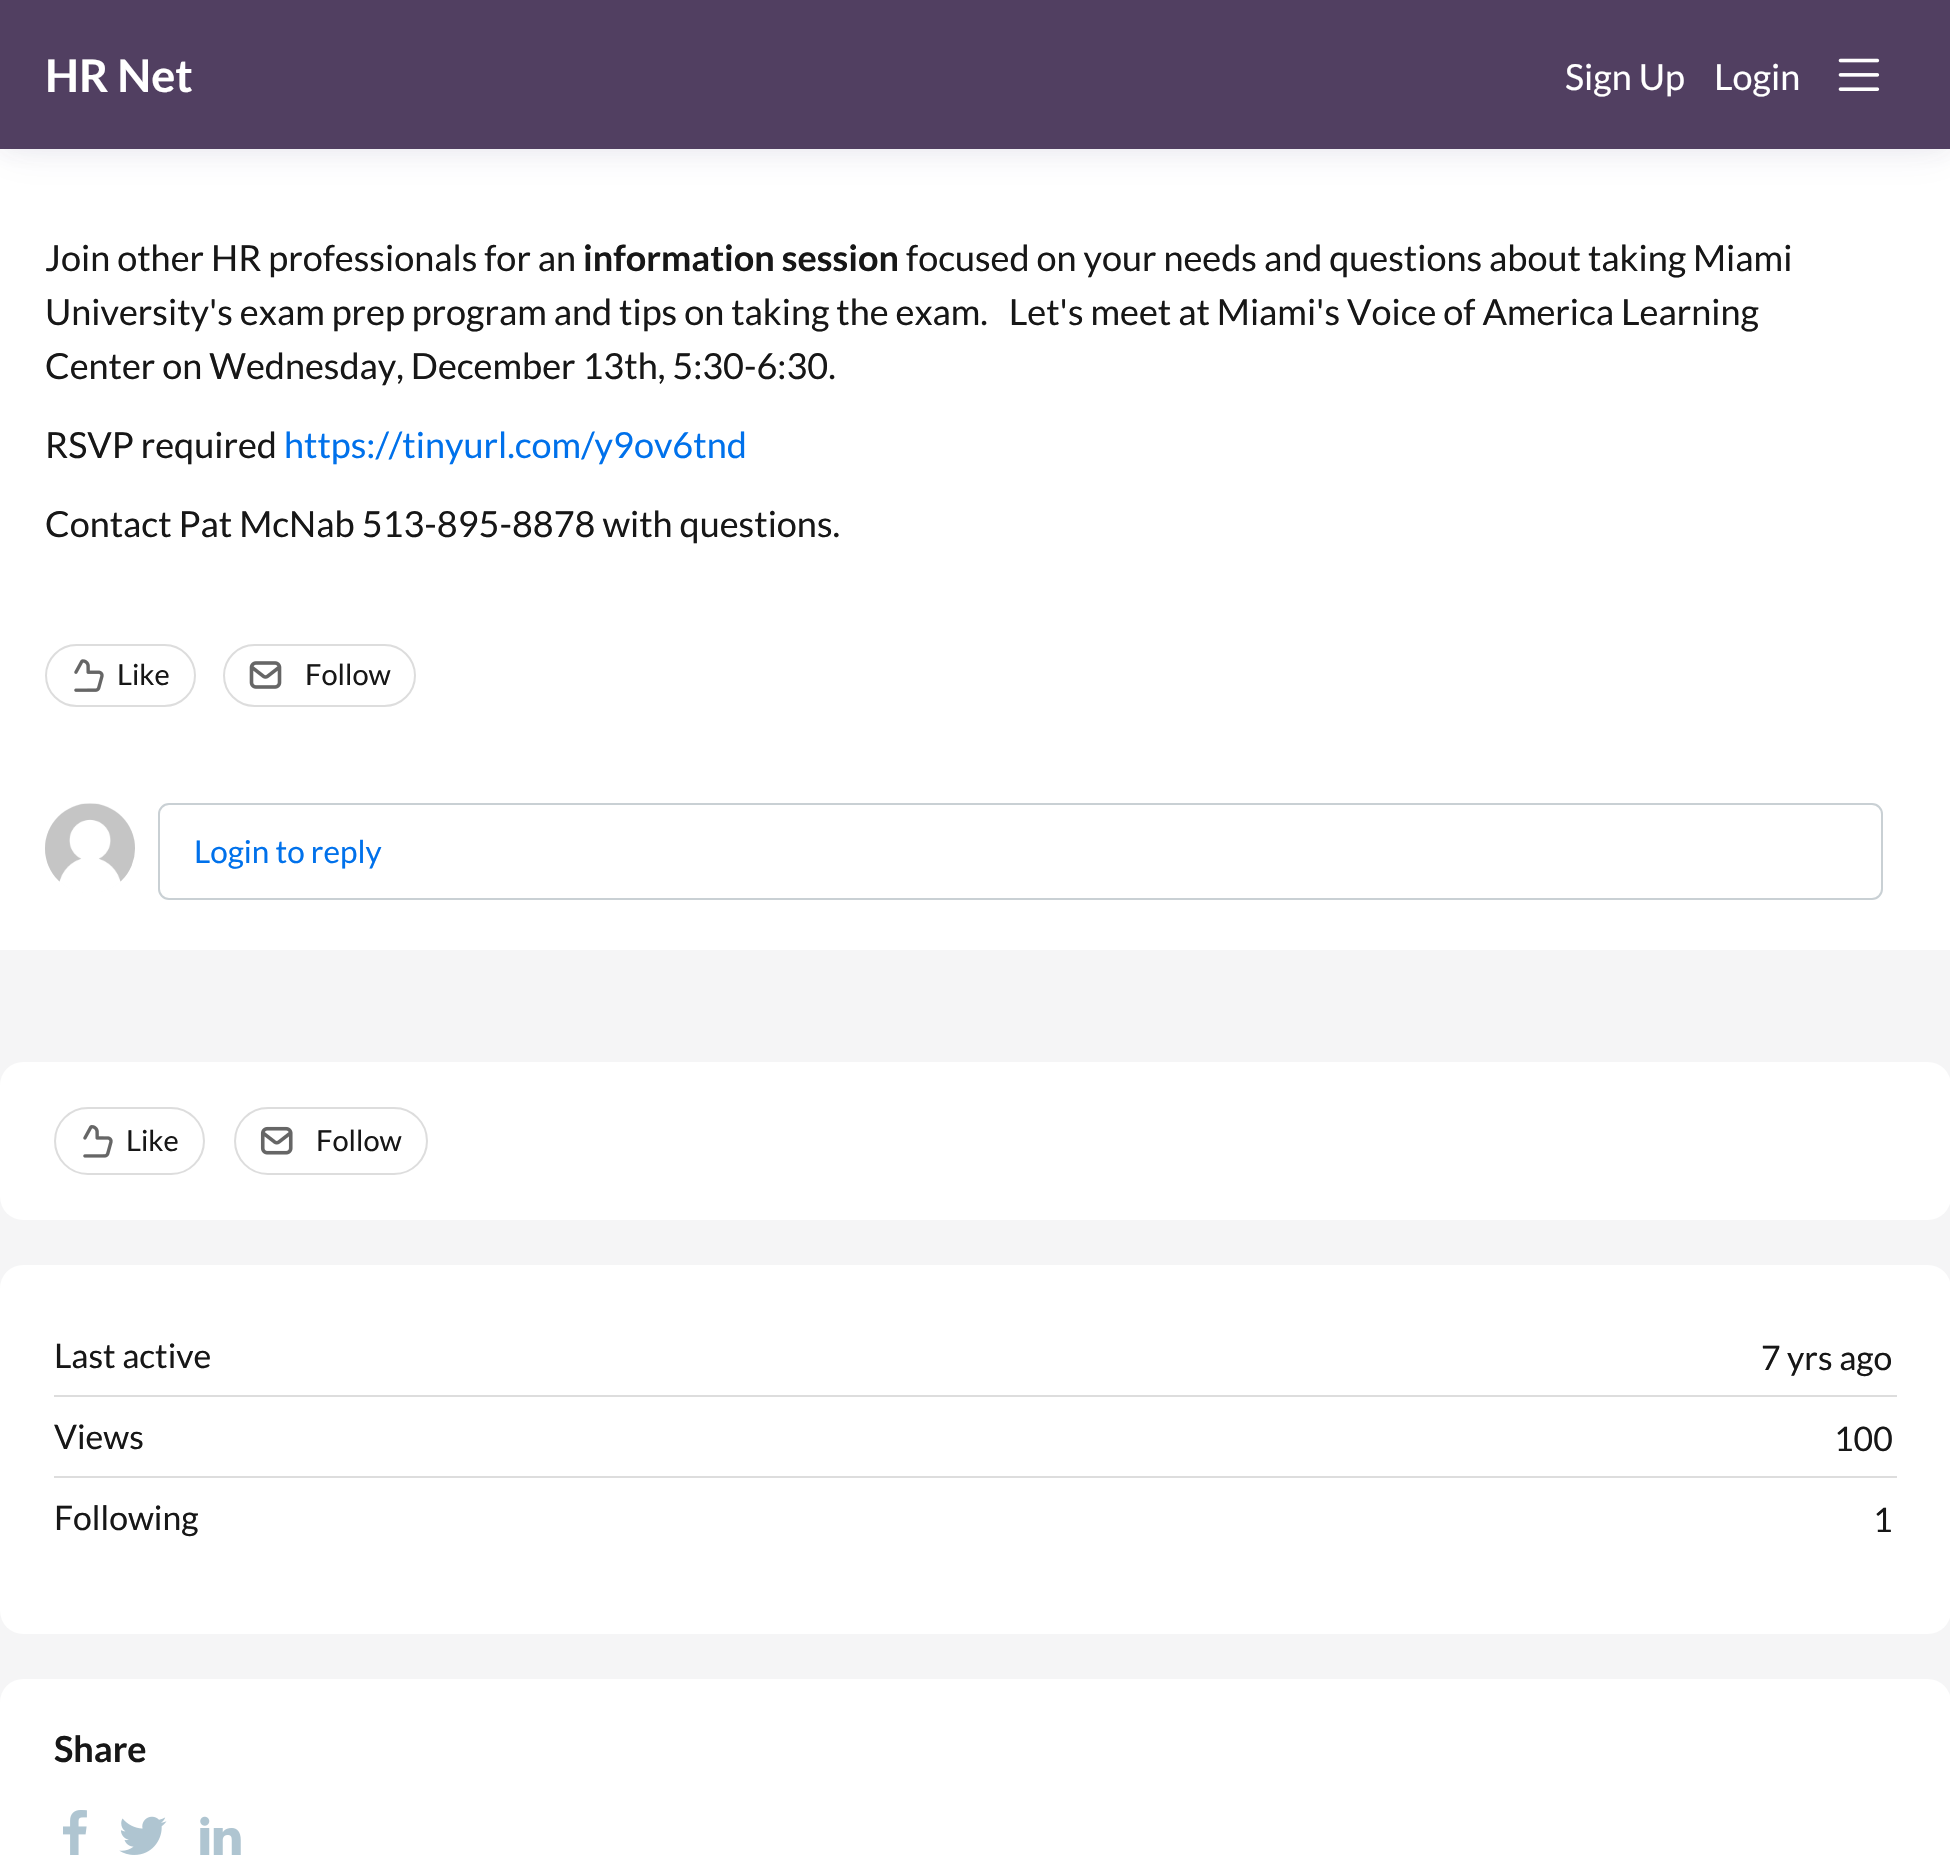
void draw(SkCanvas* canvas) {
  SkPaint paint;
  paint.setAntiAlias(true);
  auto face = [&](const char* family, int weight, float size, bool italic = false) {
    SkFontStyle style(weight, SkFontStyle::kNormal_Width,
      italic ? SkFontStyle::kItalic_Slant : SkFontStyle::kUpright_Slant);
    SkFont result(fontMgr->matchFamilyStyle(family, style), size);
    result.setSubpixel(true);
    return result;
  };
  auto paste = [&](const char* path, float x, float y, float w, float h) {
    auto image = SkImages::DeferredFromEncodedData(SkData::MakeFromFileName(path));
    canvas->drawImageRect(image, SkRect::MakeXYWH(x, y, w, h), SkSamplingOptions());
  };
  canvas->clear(0xfff5f5f6);
  paint.setColor(0xffffffff);
  canvas->drawRect(SkRect::MakeXYWH(0, 149, 1950, 801), paint);
  paint.setColor(0x0f3e396b);
  paint.setMaskFilter(SkMaskFilter::MakeBlur(kNormal_SkBlurStyle, 10));
  canvas->drawRect(SkRect::MakeXYWH(0, 5, 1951, 148), paint);
  paint.setMaskFilter(nullptr);
  paint.setColor(0x123e396b);
  paint.setMaskFilter(SkMaskFilter::MakeBlur(kNormal_SkBlurStyle, 22.5f));
  canvas->drawRect(SkRect::MakeXYWH(0, 0, 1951, 149), paint);
  paint.setMaskFilter(nullptr);
  paint.setColor(0xff513f61);
  canvas->drawRect(SkRect::MakeXYWH(0, 0, 1950, 149), paint);
  paste("img/1.png", 1838, 58, 42, 33);
  paint.setStroke(true);
  paint.setStrokeWidth(2);
  paint.setColor(0xffdddddd);
  canvas->drawRoundRect(SkRect::MakeXYWH(46, 645, 149, 61), 30.5f, 30.5f, paint);
  paste("img/2.png", 74, 659, 30, 33);
  canvas->drawRoundRect(SkRect::MakeXYWH(224, 645, 191, 61), 30.5f, 30.5f, paint);
  paste("img/3.png", 249, 661, 33, 28);
  paint.setStroke(false);
  paint.setColor(0xffefefef);
  canvas->drawCircle(90, 848, 45, paint);
  paste("img/4.png", 45, 803, 90, 90);
  paint.setStroke(true);
  paint.setColor(0xffc9d0d4);
  canvas->drawRoundRect(SkRect::MakeXYWH(159, 804, 1723, 95), 10, 10, paint);
  paint.setStroke(false);
  paint.setColor(0xffffffff);
  canvas->drawRoundRect(SkRect::MakeXYWH(0, 1062, 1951, 158), 23, 23, paint);
  paint.setStroke(true);
  paint.setColor(0xffdddddd);
  canvas->drawRoundRect(SkRect::MakeXYWH(55, 1108, 149, 66), 33, 33, paint);
  paste("img/5.png", 83, 1125, 30, 33);
  canvas->drawRoundRect(SkRect::MakeXYWH(235, 1108, 192, 66), 33, 33, paint);
  paste("img/6.png", 260, 1126, 33, 29);
  paint.setStroke(false);
  paint.setColor(0xffffffff);
  canvas->drawRoundRect(SkRect::MakeXYWH(0, 1265, 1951, 369), 23, 23, paint);
  paint.setColor(0xffdddddd);
  canvas->drawRect(SkRect::MakeXYWH(54, 1395, 1843, 2), paint);
  canvas->drawRect(SkRect::MakeXYWH(54, 1476, 1843, 2), paint);
  paint.setColor(0xffffffff);
  canvas->drawRoundRect(SkRect::MakeXYWH(0, 1679, 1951, 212), 23, 23, paint);
  paste("img/7.png", 63, 1810, 24, 45);
  paste("img/8.png", 119, 1816, 48, 39);
  paste("img/9.png", 200, 1816, 41, 39);
  auto f0 = face("Lato", 700, 45);
  canvas->drawString("HR Net", 45, 92, f0, paint);
  auto f1 = face("Lato", 400, 36);
  canvas->drawString("Sign Up", 1565, 90, f1, paint);
  canvas->drawString("Login", 1714, 90, f1, paint);
  paint.setColor(0xff171717);
  canvas->drawString("Join other HR professionals for an", 45, 271, f1, paint);
  auto f2 = face("Lato", 700, 36);
  canvas->drawString("information session", 583, 271, f2, paint);
  {
    const struct { const char* s; float x, y; } items[] = {
      {"focused on your needs and questions about taking Miami", 906, 271},
      {"University's exam prep program and tips on taking the exam.   Let's meet at Miami's Voice of America Learning", 45, 325},
      {"Center on Wednesday, December 13th, 5:30-6:30.", 45, 379},
      {"RSVP required", 45, 458},
    };
    for (auto [s, x, y] : items) {
      canvas->drawString(s, x, y, f1, paint);
    }
  }
  paint.setColor(0xff0071eb);
  canvas->drawString("https://tinyurl.com/y9ov6tnd", 284, 458, f1, paint);
  paint.setColor(0xff171717);
  canvas->drawString("Contact Pat McNab 513-895-8878 with questions.", 45, 537, f1, paint);
  auto f3 = face("Lato", 400, 29);
  canvas->drawString("Like", 117, 685, f3, paint);
  canvas->drawString("Follow", 305, 685, f3, paint);
  auto f4 = face("Lato", 400, 31.5f);
  paint.setColor(0xff0071eb);
  canvas->drawString("Login to reply", 194, 863, f4, paint);
  paint.setColor(0xff171717);
  canvas->drawString("Like", 126, 1151, f3, paint);
  canvas->drawString("Follow", 316, 1151, f3, paint);
  auto f5 = face("Lato", 400, 33.75f);
  {
    const struct { const char* s; float x, y; } items[] = {
      {"Last active", 54, 1368},
      {"7 yrs ago", 1761, 1370},
      {"Views", 54, 1449},
      {"100", 1834, 1451},
      {"Following", 54, 1530},
      {"1", 1873, 1532},
    };
    for (auto [s, x, y] : items) {
      canvas->drawString(s, x, y, f5, paint);
    }
  }
  canvas->drawString("Share", 54, 1762, f2, paint);
}
